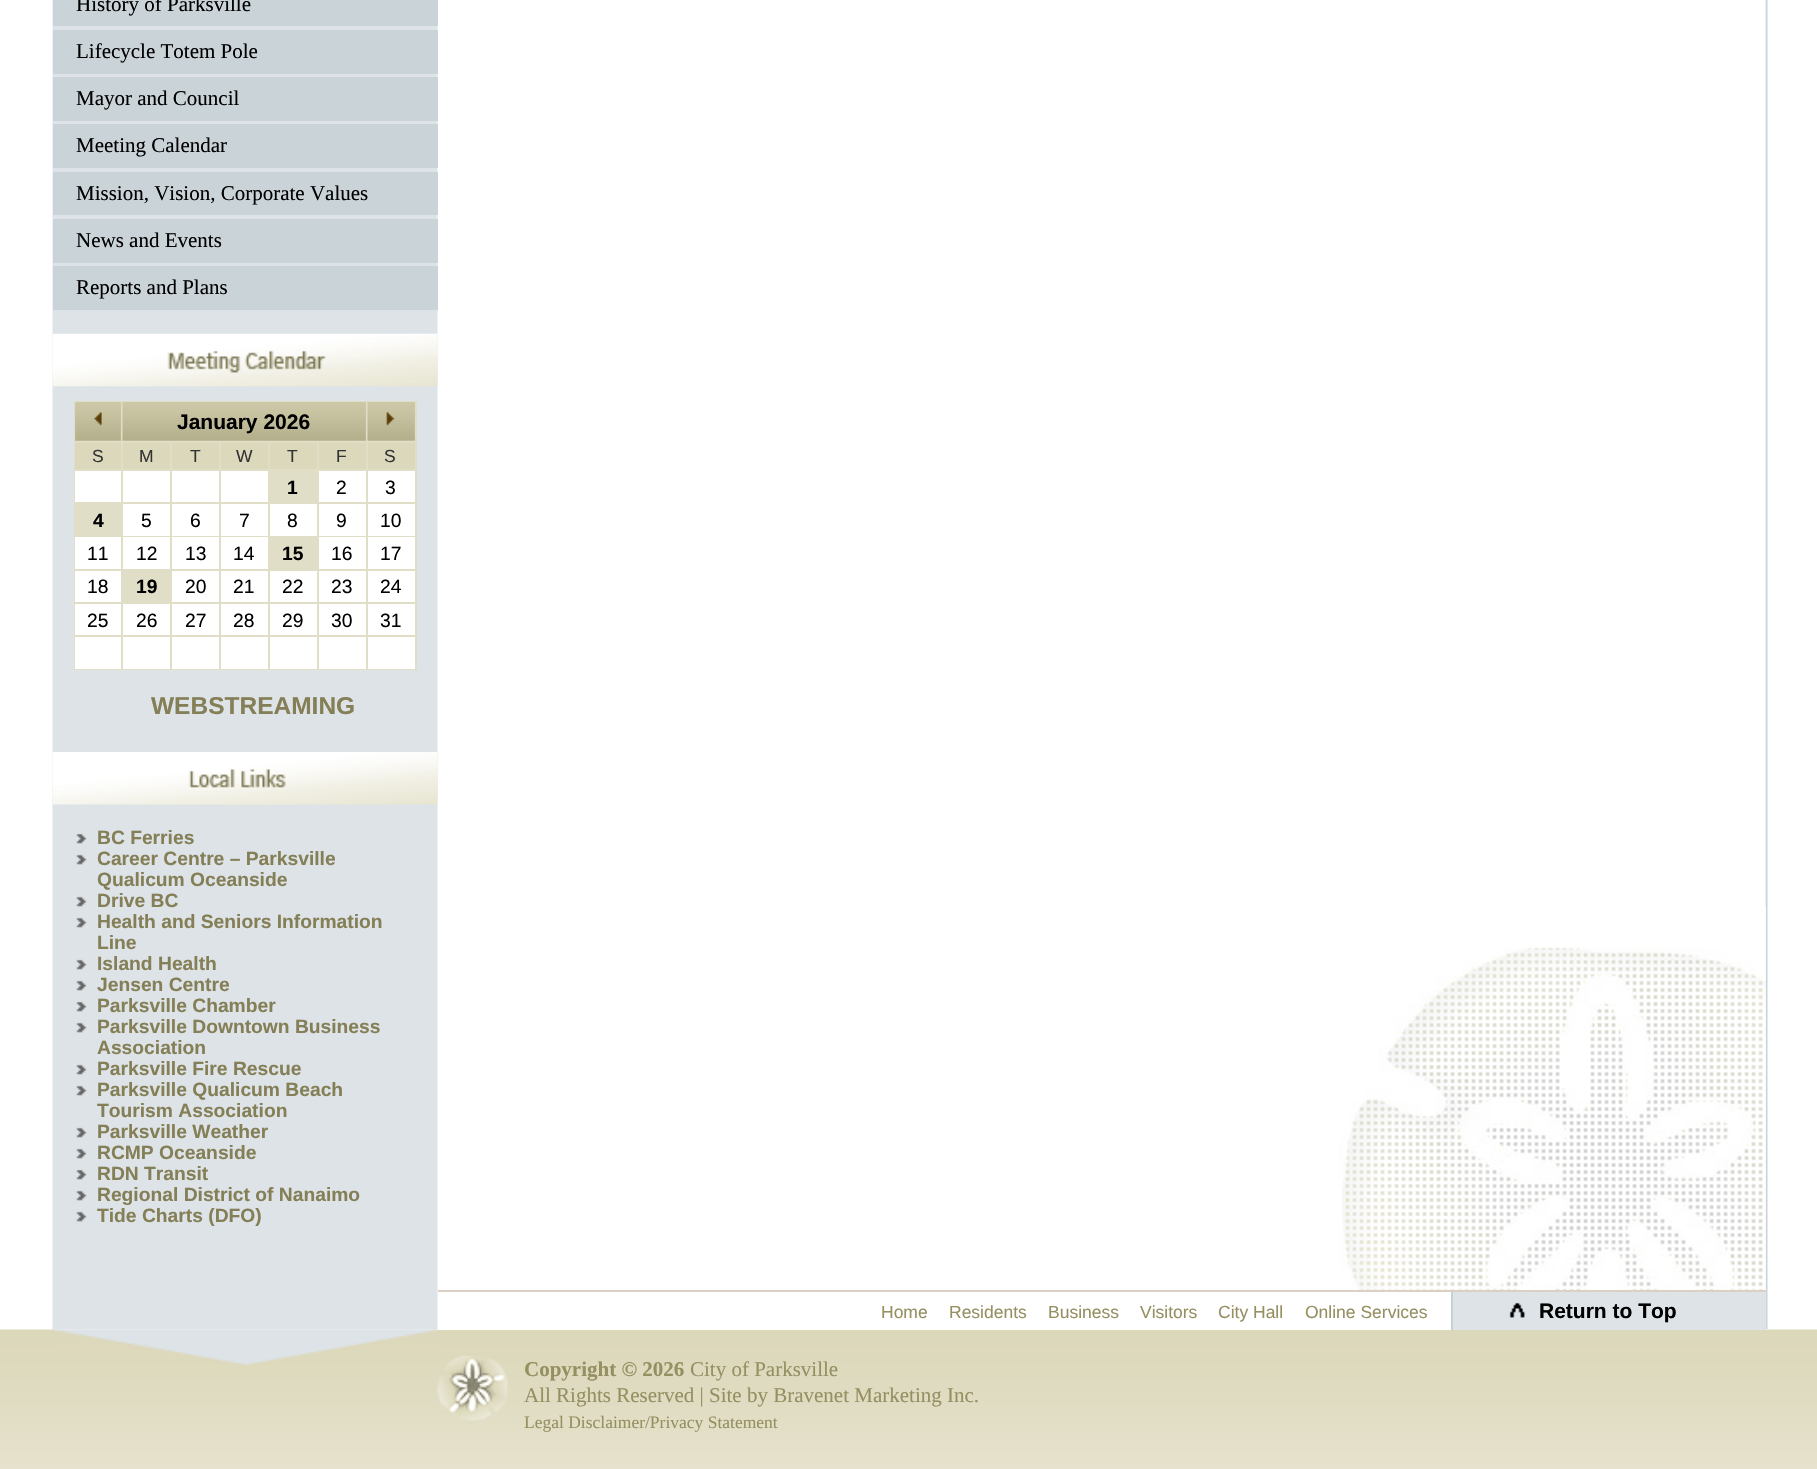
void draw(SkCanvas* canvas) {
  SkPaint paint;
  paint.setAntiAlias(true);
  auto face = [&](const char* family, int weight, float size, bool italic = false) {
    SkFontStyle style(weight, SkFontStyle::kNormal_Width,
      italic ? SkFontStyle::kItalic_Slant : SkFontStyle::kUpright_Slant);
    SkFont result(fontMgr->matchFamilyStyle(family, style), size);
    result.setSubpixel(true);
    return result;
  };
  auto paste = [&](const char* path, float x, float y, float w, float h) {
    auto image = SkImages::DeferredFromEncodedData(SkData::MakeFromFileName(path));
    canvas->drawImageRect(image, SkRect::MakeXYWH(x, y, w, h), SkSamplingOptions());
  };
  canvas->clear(0xffffffff);
  paste("img/14.png", 0, 1329, 1817, 140);
  paint.setColor(0xffffffff);
  canvas->drawRect(SkRect::MakeXYWH(53, 1329, 1715, 1), paint);
  paste("img/1.png", 52, 0, 1716, 1330);
  {
    const struct { float x, y, w, h; SkColor color; } items[] = {
      {53, 0, 385, 26, 0xffcad3d8},
      {53, 30, 385, 44, 0xffcad3d8},
      {53, 77, 385, 44, 0xffcad3d8},
      {53, 124, 385, 44, 0xffcad3d8},
      {53, 172, 385, 43, 0xffcad3d8},
      {53, 219, 385, 44, 0xffcad3d8},
      {53, 266, 385, 44, 0xffcad3d8},
    };
    for (auto [x, y, w, h, color] : items) {
      paint.setColor(color);
      canvas->drawRect(SkRect::MakeXYWH(x, y, w, h), paint);
    }
  }
  paste("img/2.png", 52, 333, 386, 54);
  paint.setColor(0xffe1dec7);
  canvas->drawRect(SkRect::MakeXYWH(74, 401, 343, 269), paint);
  paint.setColor(0xffccc8a7);
  canvas->drawRect(SkRect::MakeXYWH(75, 403, 46, 38), paint);
  paste("img/3.png", 75, 402, 46, 39);
  paste("img/4.png", 94, 412, 8, 14);
  canvas->drawRect(SkRect::MakeXYWH(123, 403, 243, 38), paint);
  paste("img/5.png", 122, 402, 244, 39);
  canvas->drawRect(SkRect::MakeXYWH(368, 403, 47, 38), paint);
  paste("img/6.png", 367, 402, 48, 39);
  paste("img/7.png", 386, 412, 9, 14);
  {
    const struct { float x, y, w, h; SkColor color; } items[] = {
      {75, 443, 46, 26, 0xffdcd8bb},
      {123, 443, 47, 26, 0xffdcd8bb},
      {172, 443, 47, 26, 0xffdcd8bb},
      {221, 443, 47, 26, 0xffdcd8bb},
      {270, 443, 47, 26, 0xffdcd8bb},
      {319, 443, 47, 26, 0xffdcd8bb},
      {368, 443, 47, 26, 0xffdcd8bb},
      {75, 471, 46, 31, 0xffffffff},
      {123, 471, 47, 31, 0xffffffff},
      {172, 471, 47, 31, 0xffffffff},
      {221, 471, 47, 31, 0xffffffff},
      {319, 471, 47, 31, 0xffffffff},
      {368, 471, 47, 31, 0xffffffff},
      {123, 504, 47, 32, 0xffffffff},
      {172, 504, 47, 32, 0xffffffff},
      {221, 504, 47, 32, 0xffffffff},
      {270, 504, 47, 32, 0xffffffff},
      {319, 504, 47, 32, 0xffffffff},
      {368, 504, 47, 32, 0xffffffff},
      {75, 537, 46, 32, 0xffffffff},
      {123, 537, 47, 32, 0xffffffff},
      {172, 537, 47, 32, 0xffffffff},
      {221, 537, 47, 32, 0xffffffff},
      {319, 537, 47, 32, 0xffffffff},
      {368, 537, 47, 32, 0xffffffff},
      {75, 571, 46, 31, 0xffffffff},
      {172, 571, 47, 31, 0xffffffff},
      {221, 571, 47, 31, 0xffffffff},
      {270, 571, 47, 31, 0xffffffff},
      {319, 571, 47, 31, 0xffffffff},
      {368, 571, 47, 31, 0xffffffff},
      {75, 604, 46, 31, 0xffffffff},
      {123, 604, 47, 31, 0xffffffff},
      {172, 604, 47, 31, 0xffffffff},
      {221, 604, 47, 31, 0xffffffff},
      {270, 604, 47, 31, 0xffffffff},
      {319, 604, 47, 31, 0xffffffff},
      {368, 604, 47, 31, 0xffffffff},
      {75, 637, 46, 32, 0xffffffff},
      {123, 637, 47, 32, 0xffffffff},
      {172, 637, 47, 32, 0xffffffff},
      {221, 637, 47, 32, 0xffffffff},
      {270, 637, 47, 32, 0xffffffff},
      {319, 637, 47, 32, 0xffffffff},
      {368, 637, 47, 32, 0xffffffff},
    };
    for (auto [x, y, w, h, color] : items) {
      paint.setColor(color);
      canvas->drawRect(SkRect::MakeXYWH(x, y, w, h), paint);
    }
  }
  paste("img/8.png", 52, 752, 386, 53);
  paste("img/9.png", 76, 833, 11, 11);
  paste("img/9.png", 76, 854, 11, 11);
  paste("img/9.png", 76, 896, 11, 11);
  paste("img/9.png", 76, 917, 11, 11);
  paste("img/9.png", 76, 959, 11, 11);
  paste("img/9.png", 76, 980, 11, 11);
  paste("img/9.png", 76, 1001, 11, 11);
  paste("img/9.png", 76, 1022, 11, 11);
  paste("img/9.png", 76, 1064, 11, 11);
  paste("img/9.png", 76, 1085, 11, 11);
  paste("img/9.png", 76, 1127, 11, 11);
  paste("img/9.png", 76, 1148, 11, 11);
  paste("img/9.png", 76, 1169, 11, 11);
  paste("img/9.png", 76, 1190, 11, 11);
  paste("img/9.png", 76, 1211, 11, 11);
  paste("img/10.png", 1339, 906, 427, 384);
  paint.setColor(0xffdcd0c5);
  canvas->drawRect(SkRect::MakeXYWH(438, 1290, 1328, 2), paint);
  paint.setColor(0xffdde3e7);
  canvas->drawRect(SkRect::MakeXYWH(1453, 1292, 313, 38), paint);
  paste("img/11.png", 1509, 1302, 16, 16);
  paint.setColor(0xffc5d1d9);
  canvas->drawRect(SkRect::MakeXYWH(1451, 1292, 2, 38), paint);
  paste("img/12.png", 52, 1329, 386, 36);
  paste("img/13.png", 437, 1355, 71, 66);
  auto f0 = face("Liberation Serif", 400, 21);
  paint.setColor(0xff000000);
  {
    const struct { const char* s; float x, y; } items[] = {
      {"History of Parksville", 76, 11},
      {"Lifecycle Totem Pole", 76, 58},
      {"Mayor and Council", 76, 105},
      {"Meeting Calendar", 76, 152},
      {"Mission, Vision, Corporate Values", 76, 200},
      {"News and Events", 76, 247},
      {"Reports and Plans", 76, 294},
    };
    for (auto [s, x, y] : items) {
      canvas->drawString(s, x, y, f0, paint);
    }
  }
  auto f1 = face("Liberation Sans", 700, 21);
  canvas->drawString("January 2026", 177, 429, f1, paint);
  auto f2 = face("Liberation Sans", 400, 17.5f);
  paint.setColor(0xff333333);
  {
    const struct { const char* s; float x, y; } items[] = {
      {"S", 92, 462},
      {"M", 139, 462},
      {"T", 190, 462},
      {"W", 236, 462},
      {"T", 287, 462},
      {"F", 336, 462},
      {"S", 384, 462},
    };
    for (auto [s, x, y] : items) {
      canvas->drawString(s, x, y, f2, paint);
    }
  }
  auto f3 = face("Liberation Sans", 700, 19.25f);
  paint.setColor(0xff000000);
  canvas->drawString("1", 287, 494, f3, paint);
  auto f4 = face("Liberation Sans", 400, 19.25f);
  canvas->drawString("2", 336, 494, f4, paint);
  canvas->drawString("3", 385, 494, f4, paint);
  canvas->drawString("4", 93, 527, f3, paint);
  {
    const struct { const char* s; float x, y; } items[] = {
      {"5", 141, 527},
      {"6", 190, 527},
      {"7", 239, 527},
      {"8", 287, 527},
      {"9", 336, 527},
      {"10", 380, 527},
      {"11", 87, 560},
      {"12", 136, 560},
      {"13", 185, 560},
      {"14", 233, 560},
    };
    for (auto [s, x, y] : items) {
      canvas->drawString(s, x, y, f4, paint);
    }
  }
  canvas->drawString("15", 282, 560, f3, paint);
  {
    const struct { const char* s; float x, y; } items[] = {
      {"16", 331, 560},
      {"17", 380, 560},
      {"18", 87, 593},
    };
    for (auto [s, x, y] : items) {
      canvas->drawString(s, x, y, f4, paint);
    }
  }
  canvas->drawString("19", 136, 593, f3, paint);
  {
    const struct { const char* s; float x, y; } items[] = {
      {"20", 185, 593},
      {"21", 233, 593},
      {"22", 282, 593},
      {"23", 331, 593},
      {"24", 380, 593},
      {"25", 87, 627},
      {"26", 136, 627},
      {"27", 185, 627},
      {"28", 233, 627},
      {"29", 282, 627},
      {"30", 331, 627},
      {"31", 380, 627},
    };
    for (auto [s, x, y] : items) {
      canvas->drawString(s, x, y, f4, paint);
    }
  }
  auto f5 = face("Liberation Sans", 700, 24.5f);
  paint.setColor(0xff847f56);
  canvas->drawString("WEBSTREAMING", 151, 714, f5, paint);
  {
    const struct { const char* s; float x, y; } items[] = {
      {"BC Ferries", 97, 844},
      {"Career Centre – Parksville", 97, 865},
      {"Qualicum Oceanside", 97, 886},
      {"Drive BC", 97, 907},
      {"Health and Seniors Information", 97, 928},
      {"Line", 97, 949},
      {"Island Health", 97, 970},
      {"Jensen Centre", 97, 991},
      {"Parksville Chamber", 97, 1012},
      {"Parksville Downtown Business", 97, 1033},
      {"Association", 97, 1054},
      {"Parksville Fire Rescue", 97, 1075},
      {"Parksville Qualicum Beach", 97, 1096},
      {"Tourism Association", 97, 1117},
      {"Parksville Weather", 97, 1138},
      {"RCMP Oceanside", 97, 1159},
      {"RDN Transit", 97, 1180},
      {"Regional District of Nanaimo", 97, 1201},
      {"Tide Charts (DFO)", 97, 1222},
    };
    for (auto [s, x, y] : items) {
      canvas->drawString(s, x, y, f3, paint);
    }
  }
  paint.setColor(0xff958f61);
  {
    const struct { const char* s; float x, y; } items[] = {
      {"Home", 881, 1318},
      {"Residents", 949, 1318},
      {"Business", 1048, 1318},
      {"Visitors", 1140, 1318},
      {"City Hall", 1218, 1318},
      {"Online Services", 1305, 1318},
    };
    for (auto [s, x, y] : items) {
      canvas->drawString(s, x, y, f2, paint);
    }
  }
  paint.setColor(0xff000000);
  canvas->drawString("Return to Top", 1539, 1318, f1, paint);
  auto f6 = face("Liberation Serif", 700, 21);
  paint.setColor(0xff958f61);
  canvas->drawString("Copyright © 2026", 524, 1376, f6, paint);
  canvas->drawString("City of Parksville", 690, 1376, f0, paint);
  canvas->drawString("All Rights Reserved | Site by Bravenet Marketing Inc.", 524, 1402, f0, paint);
  auto f7 = face("Liberation Serif", 400, 17.5f);
  canvas->drawString("Legal Disclaimer/Privacy Statement", 524, 1428, f7, paint);
}
